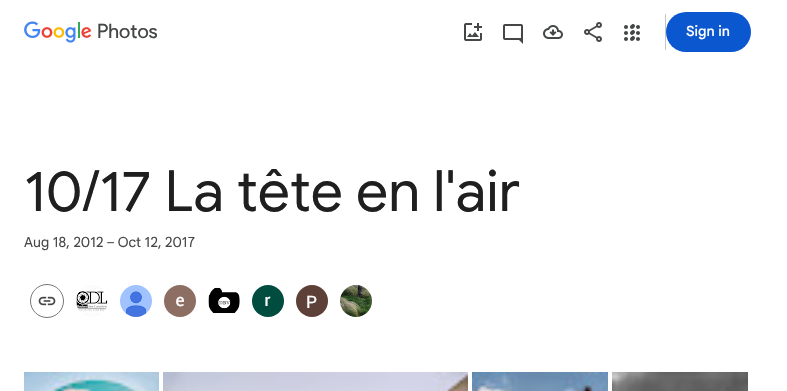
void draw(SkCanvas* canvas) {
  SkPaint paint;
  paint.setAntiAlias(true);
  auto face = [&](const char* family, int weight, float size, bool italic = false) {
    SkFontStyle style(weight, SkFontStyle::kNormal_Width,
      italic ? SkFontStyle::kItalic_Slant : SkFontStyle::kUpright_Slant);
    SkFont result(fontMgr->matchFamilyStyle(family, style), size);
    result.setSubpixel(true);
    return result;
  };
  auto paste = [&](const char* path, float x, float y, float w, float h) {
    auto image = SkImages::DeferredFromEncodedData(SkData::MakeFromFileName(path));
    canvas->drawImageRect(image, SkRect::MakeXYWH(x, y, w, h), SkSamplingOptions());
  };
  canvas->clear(0xffffffff);
  paste("img/1.png", 24, 21, 68, 22);
  paste("img/2.png", 464, 23, 18, 18);
  paste("img/3.png", 503, 24, 20, 20);
  paste("img/4.png", 543, 25, 20, 14);
  paste("img/5.png", 584, 22, 18, 20);
  paste("img/6.png", 631, 24, 4, 16);
  paint.setColor(0xffc4c7c5);
  canvas->drawRect(SkRect::MakeXYWH(665, 14, 1, 36), paint);
  paint.setStroke(true);
  paint.setStrokeWidth(1);
  paint.setColor(0xff747775);
  canvas->drawCircle(47, 301, 16.5f, paint);
  paste("img/7.png", 38, 296, 18, 10);
  paste("img/8.png", 76, 285, 32, 32);
  paste("img/9.png", 120, 285, 32, 32);
  paste("img/10.png", 164, 285, 32, 32);
  paste("img/11.png", 208, 287, 32, 26);
  paste("img/12.png", 252, 285, 32, 32);
  paste("img/13.png", 296, 285, 32, 32);
  paste("img/14.png", 340, 285, 32, 32);
  paste("img/15.png", 24, 372, 135, 19);
  paste("img/16.png", 163, 372, 305, 19);
  paste("img/17.png", 472, 372, 136, 19);
  paste("img/18.png", 612, 372, 136, 19);
  paste("img/19.png", 624, 25, 16, 16);
  paint.setStroke(false);
  paint.setColor(0xff0b57d0);
  canvas->drawRoundRect(SkRect::MakeXYWH(666, 12, 85, 40), 20, 20, paint);
  auto f0 = face("Product Sans", 400, 20);
  paint.setColor(0xff444746);
  canvas->drawString("Photos", 97, 38, f0, paint);
  auto f1 = face("Google Sans", 400, 57);
  paint.setColor(0xff1f1f1f);
  canvas->drawString("10/17 La tête en l'air", 24, 211, f1, paint);
  auto f2 = face("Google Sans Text", 400, 14);
  paint.setColor(0xff444746);
  canvas->drawString("Aug 18, 2012 – Oct 12, 2017", 24, 247, f2, paint);
  auto f3 = face("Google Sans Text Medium", 500, 14);
  paint.setColor(0xffffffff);
  canvas->drawString("Sign in", 686, 36, f3, paint);
}
